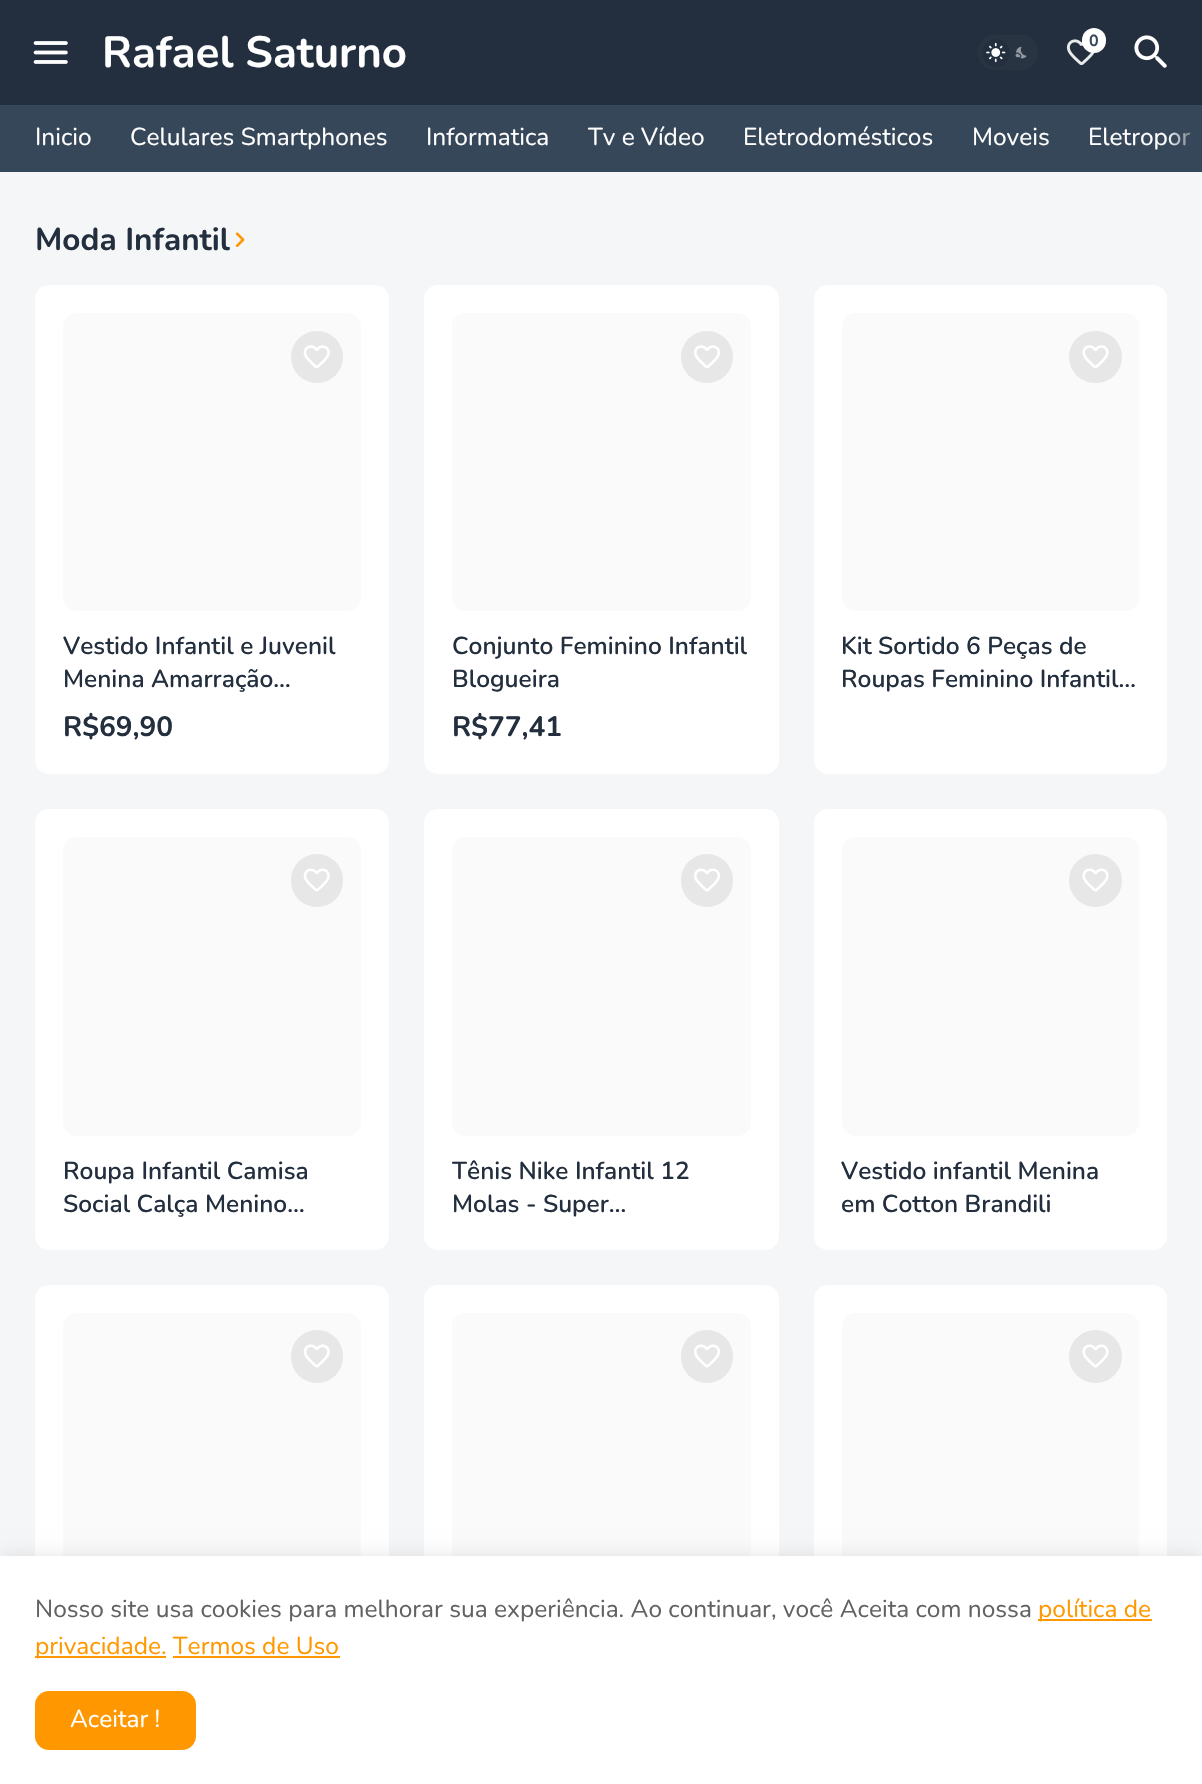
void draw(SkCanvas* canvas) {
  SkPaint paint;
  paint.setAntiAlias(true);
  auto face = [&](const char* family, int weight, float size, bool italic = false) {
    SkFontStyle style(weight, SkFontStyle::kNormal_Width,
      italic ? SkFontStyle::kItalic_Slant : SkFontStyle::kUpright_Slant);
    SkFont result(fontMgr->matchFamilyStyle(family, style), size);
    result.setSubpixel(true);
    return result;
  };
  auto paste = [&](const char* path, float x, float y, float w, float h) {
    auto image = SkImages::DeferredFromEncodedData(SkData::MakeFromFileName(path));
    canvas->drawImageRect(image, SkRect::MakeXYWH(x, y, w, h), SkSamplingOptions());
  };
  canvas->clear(0xfff5f6f7);
  paint.setColor(0xff232f3e);
  canvas->drawRect(SkRect::MakeXYWH(0, 0, 1202, 105), paint);
  paste("img/1.png", 33, 41, 35, 23);
  paint.setColor(0xff293443);
  canvas->drawRoundRect(SkRect::MakeXYWH(978, 35, 60, 35), 17.5f, 17.5f, paint);
  paint.setColor(0xff232f3e);
  canvas->drawCircle(996, 53, 14, paint);
  paste("img/2.png", 986, 42, 20, 21);
  paste("img/3.png", 1015, 46, 12, 13);
  paste("img/4.png", 1066, 39, 29, 27);
  paint.setColor(0xffffffff);
  canvas->drawRoundRect(SkRect::MakeXYWH(1082, 28, 24, 25), 12, 12, paint);
  paste("img/5.png", 1134, 35, 33, 33);
  paint.setColor(0xff37475a);
  canvas->drawRect(SkRect::MakeXYWH(0, 105, 1202, 67), paint);
  paste("img/6.png", 235, 232, 10, 15);
  paint.setColor(0xffffffff);
  canvas->drawRoundRect(SkRect::MakeXYWH(35, 285, 354, 489), 14, 14, paint);
  paint.setColor(0xfffafafa);
  canvas->drawRoundRect(SkRect::MakeXYWH(63, 313, 298, 298), 14, 14, paint);
  paint.setColor(0xffe7e7e7);
  canvas->drawCircle(317, 357, 26, paint);
  paste("img/7.png", 303, 345, 27, 24);
  paint.setColor(0xffffffff);
  canvas->drawRoundRect(SkRect::MakeXYWH(424, 285, 355, 489), 14, 14, paint);
  paint.setColor(0xfffafafa);
  canvas->drawRoundRect(SkRect::MakeXYWH(452, 313, 299, 298), 14, 14, paint);
  paint.setColor(0xffe7e7e7);
  canvas->drawCircle(707, 357, 26, paint);
  paste("img/8.png", 694, 345, 26, 24);
  paint.setColor(0xffffffff);
  canvas->drawRoundRect(SkRect::MakeXYWH(814, 285, 353, 489), 14, 14, paint);
  paint.setColor(0xfffafafa);
  canvas->drawRoundRect(SkRect::MakeXYWH(842, 313, 297, 298), 14, 14, paint);
  paint.setColor(0xffe7e7e7);
  canvas->drawRoundRect(SkRect::MakeXYWH(1069, 331, 53, 52), 26, 26, paint);
  paste("img/9.png", 1082, 345, 27, 24);
  paint.setColor(0xffffffff);
  canvas->drawRoundRect(SkRect::MakeXYWH(35, 809, 354, 441), 14, 14, paint);
  paint.setColor(0xfffafafa);
  canvas->drawRoundRect(SkRect::MakeXYWH(63, 837, 298, 299), 14, 14, paint);
  paint.setColor(0xffe7e7e7);
  canvas->drawRoundRect(SkRect::MakeXYWH(291, 854, 52, 53), 26, 26, paint);
  paste("img/10.png", 303, 868, 27, 24);
  paint.setColor(0xffffffff);
  canvas->drawRoundRect(SkRect::MakeXYWH(424, 809, 355, 441), 14, 14, paint);
  paint.setColor(0xfffafafa);
  canvas->drawRoundRect(SkRect::MakeXYWH(452, 837, 299, 299), 14, 14, paint);
  paint.setColor(0xffe7e7e7);
  canvas->drawRoundRect(SkRect::MakeXYWH(681, 854, 52, 53), 26, 26, paint);
  paste("img/11.png", 694, 868, 26, 24);
  paint.setColor(0xffffffff);
  canvas->drawRoundRect(SkRect::MakeXYWH(814, 809, 353, 441), 14, 14, paint);
  paint.setColor(0xfffafafa);
  canvas->drawRoundRect(SkRect::MakeXYWH(842, 837, 297, 299), 14, 14, paint);
  paint.setColor(0xffe7e7e7);
  canvas->drawCircle(1095.5f, 880.5f, 26.5f, paint);
  paste("img/12.png", 1082, 868, 27, 24);
  paint.setColor(0xffffffff);
  canvas->drawRoundRect(SkRect::MakeXYWH(35, 1285, 354, 442), 14, 14, paint);
  paint.setColor(0xfffafafa);
  canvas->drawRoundRect(SkRect::MakeXYWH(63, 1313, 298, 299), 14, 14, paint);
  paint.setColor(0xffe7e7e7);
  canvas->drawRoundRect(SkRect::MakeXYWH(291, 1330, 52, 53), 26, 26, paint);
  paste("img/10.png", 303, 1344, 27, 24);
  paint.setColor(0xffffffff);
  canvas->drawRoundRect(SkRect::MakeXYWH(424, 1285, 355, 442), 14, 14, paint);
  paint.setColor(0xfffafafa);
  canvas->drawRoundRect(SkRect::MakeXYWH(452, 1313, 299, 299), 14, 14, paint);
  paint.setColor(0xffe7e7e7);
  canvas->drawRoundRect(SkRect::MakeXYWH(681, 1330, 52, 53), 26, 26, paint);
  paste("img/11.png", 694, 1344, 26, 24);
  paint.setColor(0xffffffff);
  canvas->drawRoundRect(SkRect::MakeXYWH(814, 1285, 353, 442), 14, 14, paint);
  paint.setColor(0xfffafafa);
  canvas->drawRoundRect(SkRect::MakeXYWH(842, 1313, 297, 299), 14, 14, paint);
  paint.setColor(0xffe7e7e7);
  canvas->drawCircle(1095.5f, 1356.5f, 26.5f, paint);
  paste("img/12.png", 1082, 1344, 27, 24);
  paint.setColor(0x1a000000);
  paint.setMaskFilter(SkMaskFilter::MakeBlur(kNormal_SkBlurStyle, 9));
  canvas->drawRect(SkRect::MakeXYWH(0, 1556, 1202, 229), paint);
  paint.setMaskFilter(nullptr);
  {
    const struct { float x, y, w, h; SkColor color; } items[] = {
      {0, 1556, 1202, 228, 0xffffffff},
      {1038, 1619, 114, 2, 0xffff9800},
      {35, 1656, 131, 2, 0xffff9800},
      {173, 1656, 167, 2, 0xffff9800},
    };
    for (auto [x, y, w, h, color] : items) {
      paint.setColor(color);
      canvas->drawRect(SkRect::MakeXYWH(x, y, w, h), paint);
    }
  }
  canvas->drawRoundRect(SkRect::MakeXYWH(35, 1691, 161, 59), 14, 14, paint);
  auto f0 = face("Nunito", 700, 43.75f);
  paint.setColor(0xffffffff);
  canvas->drawString("Rafael Saturno", 102, 67, f0, paint);
  auto f1 = face("Nunito", 700, 16);
  paint.setColor(0xff37475a);
  canvas->drawString("0", 1089, 46, f1, paint);
  auto f2 = face("Nunito", 400, 24.5f);
  paint.setColor(0xffffffff);
  {
    const struct { const char* s; float x, y; } items[] = {
      {"Inicio", 35, 145},
      {"Celulares Smartphones", 130, 145},
      {"Informatica", 426, 145},
      {"Tv e Vídeo", 588, 145},
      {"Eletrodomésticos", 743, 145},
      {"Moveis", 972, 145},
      {"Eletropor", 1088, 145},
    };
    for (auto [s, x, y] : items) {
      canvas->drawString(s, x, y, f2, paint);
    }
  }
  {
    const SkColor colors[] = {0x0037475a, 0xff37475a};
    const float stops[] = {0, 1};
    const SkPoint ends[] = {{1167, 138}, {1202, 138}};
    paint.setShader(SkGradientShader::MakeLinear(ends, colors, stops, 2, SkTileMode::kClamp));
    paint.setAlpha(255);
  }
  canvas->drawRect(SkRect::MakeXYWH(1169, 132, 21, 14), paint);
  auto f3 = face("Nunito", 700, 31.5f);
  paint.setShader(nullptr);
  paint.setColor(0xff232f3e);
  canvas->drawString("Moda Infantil", 35, 250, f3, paint);
  auto f4 = face("Nunito", 600, 24.5f);
  canvas->drawString("Vestido Infantil e Juvenil", 63, 654, f4, paint);
  canvas->drawString("Menina Amarração…", 63, 687, f4, paint);
  auto f5 = face("Nunito", 700, 28);
  canvas->drawString("R$69,90", 63, 736, f5, paint);
  canvas->drawString("Conjunto Feminino Infantil", 452, 654, f4, paint);
  canvas->drawString("Blogueira", 452, 687, f4, paint);
  canvas->drawString("R$77,41", 452, 736, f5, paint);
  {
    const struct { const char* s; float x, y; } items[] = {
      {"Kit Sortido 6 Peças de", 841, 654},
      {"Roupas Feminino Infantil…", 841, 687},
      {"Roupa Infantil Camisa", 63, 1179},
      {"Social Calça Menino…", 63, 1212},
      {"Tênis Nike Infantil 12", 452, 1179},
      {"Molas - Super…", 452, 1212},
      {"Vestido infantil Menina", 841, 1179},
      {"em Cotton Brandili", 841, 1212},
    };
    for (auto [s, x, y] : items) {
      canvas->drawString(s, x, y, f4, paint);
    }
  }
  paint.setColor(0xff626262);
  canvas->drawString("Nosso site usa cookies para melhorar sua experiência. Ao continuar, você Aceita com nossa", 35, 1617, f2, paint);
  paint.setColor(0xffff9800);
  canvas->drawString("política de", 1038, 1617, f2, paint);
  canvas->drawString("privacidade. Termos de Uso", 35, 1654, f2, paint);
  paint.setColor(0xffffffff);
  canvas->drawString("Aceitar !", 70, 1727, f2, paint);
}
